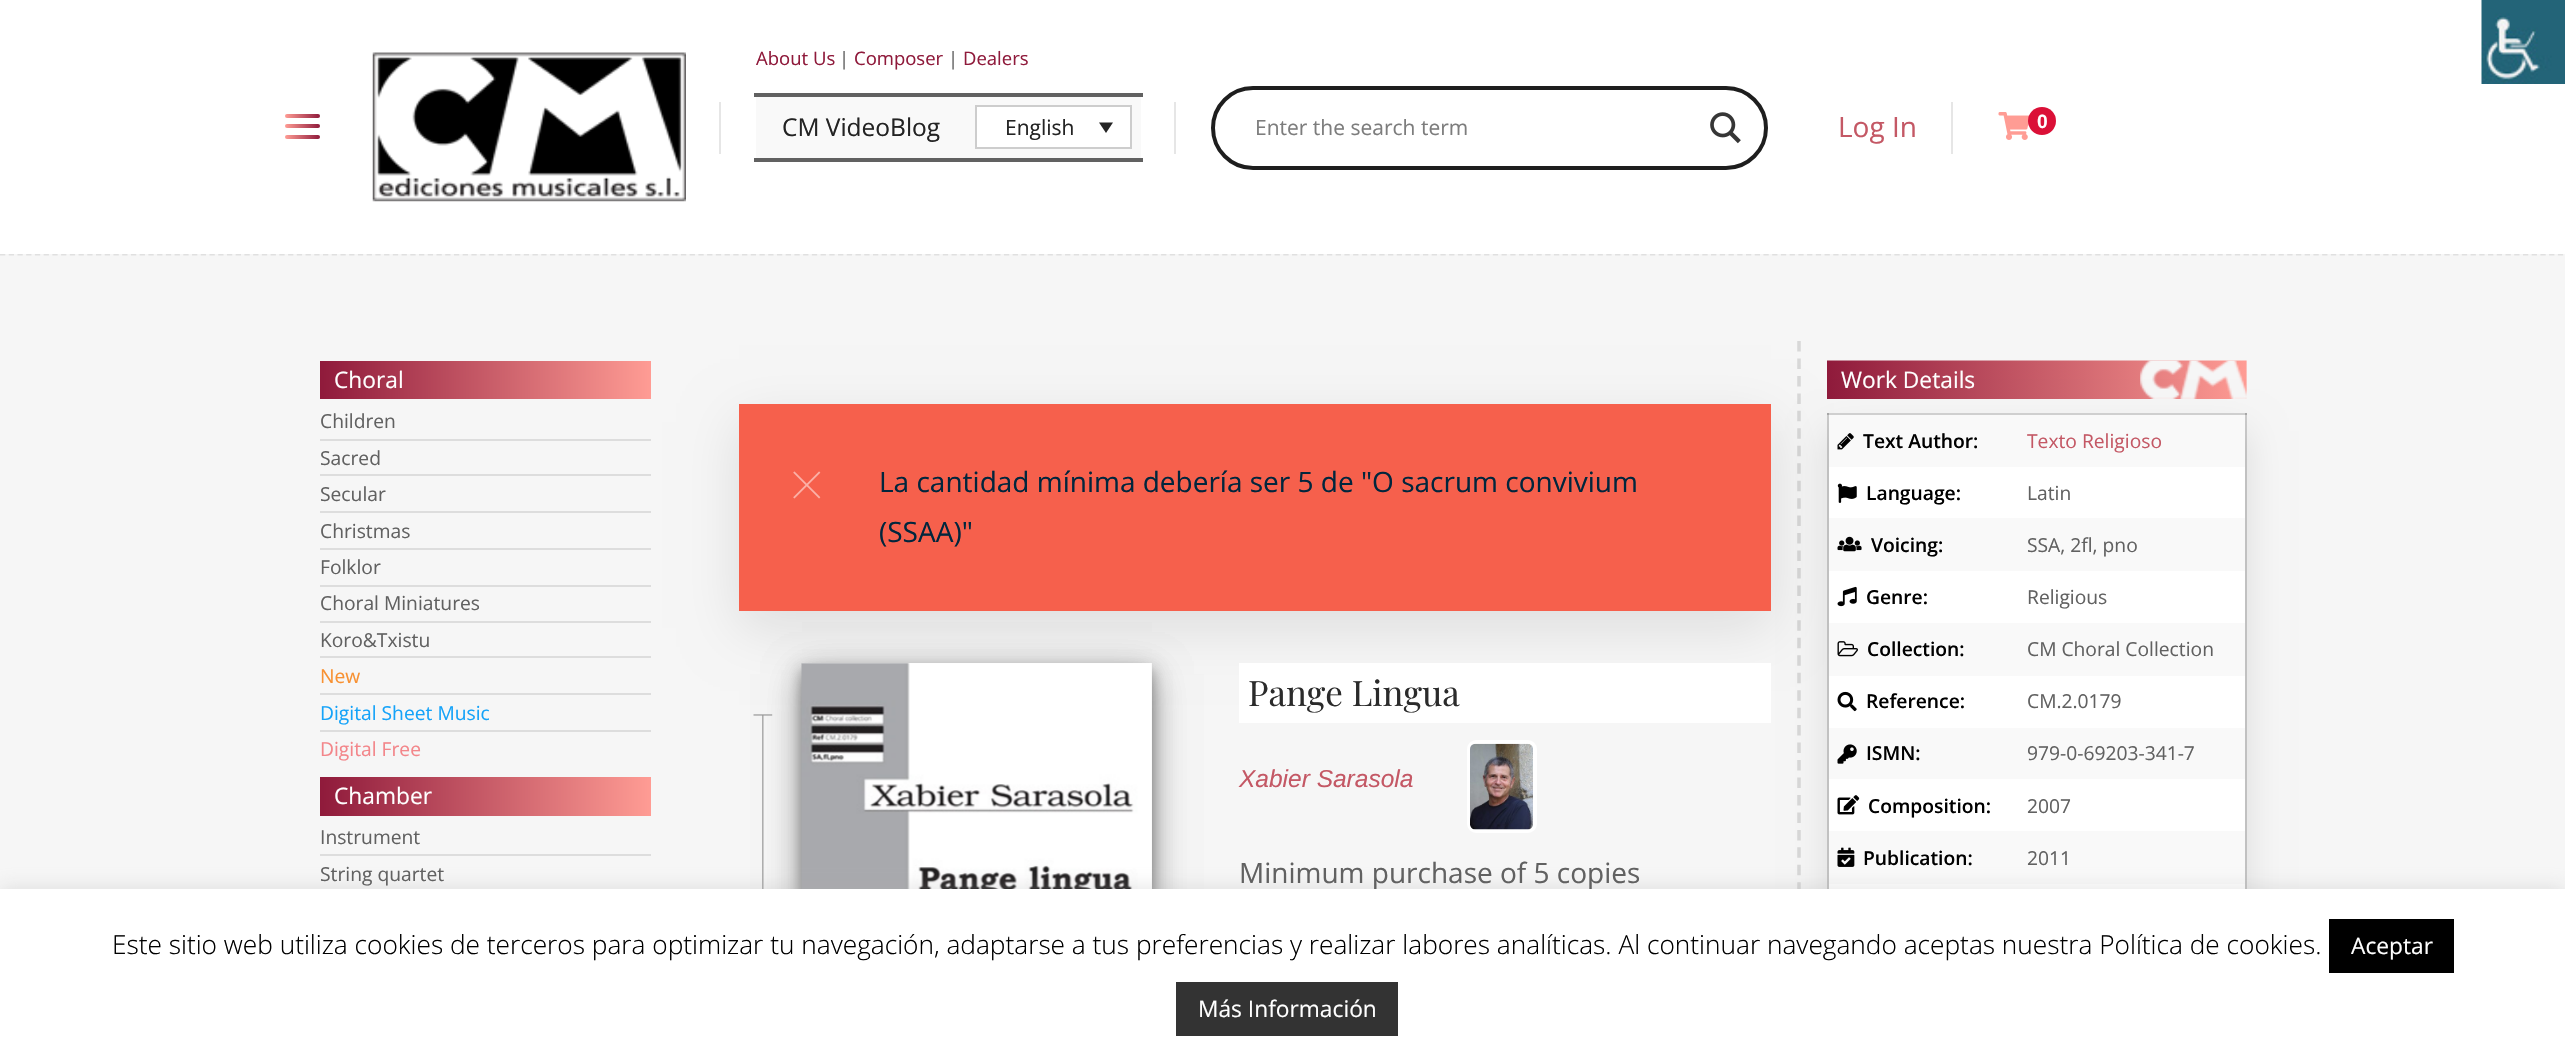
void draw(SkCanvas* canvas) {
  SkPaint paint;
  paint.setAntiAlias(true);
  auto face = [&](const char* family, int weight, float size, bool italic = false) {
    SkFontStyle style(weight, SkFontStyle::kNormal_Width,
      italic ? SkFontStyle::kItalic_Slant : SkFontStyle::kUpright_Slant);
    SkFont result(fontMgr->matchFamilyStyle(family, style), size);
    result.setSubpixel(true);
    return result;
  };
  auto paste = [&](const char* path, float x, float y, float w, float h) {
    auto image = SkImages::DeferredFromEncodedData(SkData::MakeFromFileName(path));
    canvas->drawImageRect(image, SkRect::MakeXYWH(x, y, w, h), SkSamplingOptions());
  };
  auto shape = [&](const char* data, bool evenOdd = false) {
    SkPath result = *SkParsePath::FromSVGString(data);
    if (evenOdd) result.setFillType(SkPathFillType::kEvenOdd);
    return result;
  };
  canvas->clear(0xfff6f6f6);
  {
    const struct { float x, y, w, h; SkColor color; } items[] = {
      {1827, 413, 2, 476, 0xffcccccc},
      {2245, 413, 2, 476, 0xffcccccc},
      {1827, 413, 2, 2, 0xffa9a9a9},
      {2245, 413, 2, 2, 0xffa9a9a9},
    };
    for (auto [x, y, w, h, color] : items) {
      paint.setColor(color);
      canvas->drawRect(SkRect::MakeXYWH(x, y, w, h), paint);
    }
  }
  paint.setStroke(true);
  paint.setStrokeWidth(1.8f);
  paint.setColor(0xffe0e0e0);
  paint.setPathEffect(SkDashPathEffect::Make({{5.25f, 3.48f}}, 0));
  canvas->drawPath(shape("M0 254.5H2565.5"), paint);
  paint.setPathEffect(nullptr);
  paint.setStroke(false);
  paint.setColor(0xffffffff);
  canvas->drawRect(SkRect::MakeXYWH(0, 0, 2565, 254), paint);
  paste("img/1.png", 2481, 0, 84, 84);
  {
    const SkColor colors[] = {0xff8f1a3b, 0xffff9c94};
    const float stops[] = {0, 1};
    const SkPoint ends[] = {{320, 126}, {285, 126}};
    paint.setShader(SkGradientShader::MakeLinear(ends, colors, stops, 2, SkTileMode::kClamp));
    paint.setAlpha(255);
  }
  canvas->drawRoundRect(SkRect::MakeXYWH(285, 124, 35, 4), 2, 2, paint);
  {
    const SkColor colors[] = {0xff8f1a3b, 0xffff9c94};
    const float stops[] = {0, 1};
    const SkPoint ends[] = {{320, 116}, {285, 116}};
    paint.setShader(SkGradientShader::MakeLinear(ends, colors, stops, 2, SkTileMode::kClamp));
    paint.setAlpha(255);
  }
  canvas->drawRoundRect(SkRect::MakeXYWH(285, 114, 35, 4), 2, 2, paint);
  {
    const SkColor colors[] = {0xff8f1a3b, 0xffff9c94};
    const float stops[] = {0, 1};
    const SkPoint ends[] = {{320, 137}, {285, 137}};
    paint.setShader(SkGradientShader::MakeLinear(ends, colors, stops, 2, SkTileMode::kClamp));
    paint.setAlpha(255);
  }
  canvas->drawRoundRect(SkRect::MakeXYWH(285, 135, 35, 4), 2, 2, paint);
  paste("img/2.png", 372, 52, 314, 150);
  paint.setShader(nullptr);
  {
    const struct { float x, y, w, h; SkColor color; } items[] = {
      {719, 102, 2, 52, 0xffe6e6e6},
      {756, 97, 385, 61, 0xfff9f9f9},
      {754, 93, 389, 4, 0xff616161},
      {754, 158, 389, 4, 0xff616161},
    };
    for (auto [x, y, w, h, color] : items) {
      paint.setColor(color);
      canvas->drawRect(SkRect::MakeXYWH(x, y, w, h), paint);
    }
  }
  paint.setColor(0xffffffff);
  canvas->drawRect(SkRect::MakeXYWH(976, 106, 155, 42), paint);
  paint.setStroke(true);
  paint.setStrokeWidth(2);
  paint.setColor(0xffcdcdcd);
  canvas->drawRect(SkRect::MakeXYWH(976, 106, 155, 42), paint);
  paint.setStroke(false);
  paint.setColor(0xff242424);
  canvas->drawPath(shape("M1099 122.5H1113L1106 133Z"), paint);
  paint.setColor(0xffe6e6e6);
  canvas->drawRect(SkRect::MakeXYWH(1174, 102, 2, 52), paint);
  paint.setStroke(true);
  paint.setStrokeWidth(4);
  paint.setColor(0xff1e1e1e);
  canvas->drawRoundRect(SkRect::MakeXYWH(1213, 88, 553, 80), 40, 40, paint);
  paste("img/3.png", 1710, 112, 31, 32);
  paint.setStroke(false);
  paint.setColor(0xffe6e6e6);
  canvas->drawRect(SkRect::MakeXYWH(1951, 102, 2, 52), paint);
  paste("img/4.png", 1998, 112, 32, 28);
  paint.setColor(0xffdb1037);
  canvas->drawCircle(2042, 121, 14, paint);
  {
    const SkColor colors[] = {0xff8f1a3b, 0xffff9c94};
    const float stops[] = {0, 1};
    const SkPoint ends[] = {{320, 380}, {651, 380}};
    paint.setShader(SkGradientShader::MakeLinear(ends, colors, stops, 2, SkTileMode::kClamp));
    paint.setAlpha(255);
  }
  canvas->drawRect(SkRect::MakeXYWH(320, 361, 331, 38), paint);
  paint.setShader(nullptr);
  {
    const struct { float x, y, w, h; SkColor color; } items[] = {
      {320, 439, 331, 2, 0xffdddddd},
      {320, 474, 331, 2, 0xffdddddd},
      {320, 511, 331, 2, 0xffdddddd},
      {320, 548, 331, 2, 0xffdddddd},
      {320, 585, 331, 2, 0xffdddddd},
      {320, 621, 331, 2, 0xffdddddd},
      {320, 656, 331, 2, 0xffdddddd},
      {320, 693, 331, 2, 0xffdddddd},
      {320, 730, 331, 2, 0xffdddddd},
    };
    for (auto [x, y, w, h, color] : items) {
      paint.setColor(color);
      canvas->drawRect(SkRect::MakeXYWH(x, y, w, h), paint);
    }
  }
  {
    const SkColor colors[] = {0xff8f1a3b, 0xffff9c94};
    const float stops[] = {0, 1};
    const SkPoint ends[] = {{320, 796}, {651, 796}};
    paint.setShader(SkGradientShader::MakeLinear(ends, colors, stops, 2, SkTileMode::kClamp));
    paint.setAlpha(255);
  }
  canvas->drawRect(SkRect::MakeXYWH(320, 777, 331, 39), paint);
  paint.setShader(nullptr);
  paint.setColor(0xffdddddd);
  canvas->drawRect(SkRect::MakeXYWH(320, 854, 331, 2), paint);
  paint.setColor(0x1a000000);
  paint.setMaskFilter(SkMaskFilter::MakeBlur(kNormal_SkBlurStyle, 26));
  canvas->drawRect(SkRect::MakeXYWH(739, 422, 1032, 206), paint);
  paint.setMaskFilter(nullptr);
  paint.setColor(0xfff6604c);
  canvas->drawRect(SkRect::MakeXYWH(739, 404, 1032, 207), paint);
  paste("img/5.png", 793, 471, 28, 28);
  paste("img/7.png", 753, 714, 20, 175);
  paint.setColor(0x30000000);
  paint.setMaskFilter(SkMaskFilter::MakeBlur(kNormal_SkBlurStyle, 17.5f));
  canvas->drawRect(SkRect::MakeXYWH(802, 674, 350, 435), paint);
  paint.setMaskFilter(nullptr);
  paint.setColor(0x33000000);
  paint.setMaskFilter(SkMaskFilter::MakeBlur(kNormal_SkBlurStyle, 7));
  canvas->drawRect(SkRect::MakeXYWH(802, 670, 350, 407), paint);
  paint.setMaskFilter(nullptr);
  paint.setColor(0x30000000);
  paint.setMaskFilter(SkMaskFilter::MakeBlur(kNormal_SkBlurStyle, 17.5f));
  canvas->drawRect(SkRect::MakeXYWH(802, 674, 350, 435), paint);
  paint.setMaskFilter(nullptr);
  paint.setColor(0x33000000);
  paint.setMaskFilter(SkMaskFilter::MakeBlur(kNormal_SkBlurStyle, 7));
  canvas->drawRect(SkRect::MakeXYWH(802, 670, 350, 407), paint);
  paint.setMaskFilter(nullptr);
  {
    const SkColor colors[] = {0xffffffff, 0xfffafafa};
    const float stops[] = {0, 1};
    const SkPoint ends[] = {{758, 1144}, {1195, 706}};
    paint.setShader(SkGradientShader::MakeLinear(ends, colors, stops, 2, SkTileMode::kClamp));
    paint.setAlpha(255);
  }
  canvas->drawRect(SkRect::MakeXYWH(802, 663, 350, 226), paint);
  paste("img/6.png", 801, 663, 350, 226);
  paint.setShader(nullptr);
  paint.setColor(0xffffffff);
  canvas->drawRect(SkRect::MakeXYWH(1239, 663, 532, 60), paint);
  paint.setStroke(true);
  canvas->drawRoundRect(SkRect::MakeXYWH(1469, 742, 66, 89), 7, 7, paint);
  paste("img/8.png", 1470, 743, 63, 87);
  paint.setStrokeWidth(3.5f);
  paint.setColor(0x1f000000);
  paint.setPathEffect(SkDashPathEffect::Make({{10.5f, 6.96f}}, 0));
  canvas->drawPath(shape("M1799 341V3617"), paint);
  paint.setPathEffect(nullptr);
  paste("img/9.png", 1827, 360, 420, 39);
  paint.setStroke(false);
  paint.setColor(0x1a000000);
  paint.setMaskFilter(SkMaskFilter::MakeBlur(kNormal_SkBlurStyle, 17.5f));
  canvas->drawRect(SkRect::MakeXYWH(1827, 431, 420, 525), paint);
  paint.setMaskFilter(nullptr);
  {
    const struct { float x, y, w, h; SkColor color; } items[] = {
      {1829, 467, 416, 422, 0xffffffff},
      {1829, 415, 416, 52, 0xfff9f9f9},
      {1829, 413, 416, 2, 0xffcfcfcf},
    };
    for (auto [x, y, w, h, color] : items) {
      paint.setColor(color);
      canvas->drawRect(SkRect::MakeXYWH(x, y, w, h), paint);
    }
  }
  paste("img/10.png", 1837, 433, 17, 17);
  paste("img/11.png", 1837, 483, 20, 20);
  paint.setColor(0xfff9f9f9);
  canvas->drawRect(SkRect::MakeXYWH(1829, 518, 416, 53), paint);
  paste("img/12.png", 1837, 536, 25, 16);
  paste("img/13.png", 1837, 586, 20, 21);
  canvas->drawRect(SkRect::MakeXYWH(1829, 623, 416, 53), paint);
  paste("img/14.png", 1837, 641, 21, 16);
  paste("img/15.png", 1837, 691, 20, 21);
  canvas->drawRect(SkRect::MakeXYWH(1829, 728, 416, 51), paint);
  paste("img/16.png", 1837, 744, 20, 20);
  paste("img/17.png", 1837, 795, 23, 20);
  canvas->drawRect(SkRect::MakeXYWH(1829, 831, 416, 53), paint);
  paste("img/18.png", 1837, 847, 18, 20);
  paint.setColor(0x4dacabab);
  paint.setMaskFilter(SkMaskFilter::MakeBlur(kNormal_SkBlurStyle, 9));
  canvas->drawRect(SkRect::MakeXYWH(0, 887, 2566, 168), paint);
  paint.setMaskFilter(nullptr);
  auto f0 = face("Open Sans", 400, 18.5f);
  paint.setColor(0xff8f1a3b);
  canvas->drawString("About Us", 756, 65, f0, paint);
  paint.setColor(0xff616161);
  canvas->drawString("|", 839, 65, f0, paint);
  paint.setColor(0xff8f1a3b);
  canvas->drawString("Composer", 854, 65, f0, paint);
  paint.setColor(0xff616161);
  canvas->drawString("|", 948, 65, f0, paint);
  paint.setColor(0xff8f1a3b);
  canvas->drawString("Dealers", 963, 65, f0, paint);
  auto f1 = face("Open Sans", 400, 24.5f);
  paint.setColor(0xff232323);
  canvas->drawString("CM VideoBlog", 782, 136, f1, paint);
  auto f2 = face("Open Sans", 400, 21);
  canvas->drawString("English", 1005, 135, f2, paint);
  paint.setColor(0xff7d7d7d);
  canvas->drawString("Enter the search term", 1255, 135, f2, paint);
  auto f3 = face("Open Sans", 400, 28);
  paint.setColor(0xffc45865);
  canvas->drawString("Log In", 1838, 137, f3, paint);
  auto f4 = face("Liberation Sans", 700, 19.25f);
  paint.setColor(0xffffffff);
  canvas->drawString("0", 2037, 128, f4, paint);
  auto f5 = face("Open Sans", 400, 22.75f);
  canvas->drawString("Choral", 334, 388, f5, paint);
  auto f6 = face("Open Sans", 400, 19.25f);
  paint.setColor(0xff616161);
  {
    const struct { const char* s; float x, y; } items[] = {
      {"Children", 320, 428},
      {"Sacred", 320, 465},
      {"Secular", 320, 501},
      {"Christmas", 320, 538},
      {"Folklor", 320, 574},
      {"Choral Miniatures", 320, 610},
      {"Koro&Txistu", 320, 647},
    };
    for (auto [s, x, y] : items) {
      canvas->drawString(s, x, y, f6, paint);
    }
  }
  paint.setColor(0xfff89132);
  canvas->drawString("New", 320, 683, f6, paint);
  paint.setColor(0xff15a3f9);
  canvas->drawString("Digital Sheet Music", 320, 720, f6, paint);
  paint.setColor(0xfff3868a);
  canvas->drawString("Digital Free", 320, 756, f6, paint);
  paint.setColor(0xffffffff);
  canvas->drawString("Chamber", 334, 804, f5, paint);
  paint.setColor(0xff616161);
  canvas->drawString("Instrument", 320, 844, f6, paint);
  canvas->drawString("String quartet", 320, 881, f6, paint);
  paint.setColor(0xff01263d);
  canvas->drawString("La cantidad mínima debería ser 5 de \"O sacrum convivium", 879, 492, f3, paint);
  canvas->drawString("(SSAA)\"", 879, 542, f3, paint);
  auto f7 = face("Playfair Display", 400, 35);
  paint.setColor(0xff2b2b2b);
  canvas->drawString("Pange Lingua", 1248, 706, f7, paint);
  auto f8 = face("Liberation Sans", 400, 24.5f, true);
  paint.setColor(0xffc45865);
  canvas->drawString("Xabier Sarasola", 1239, 787, f8, paint);
  paint.setColor(0xff616161);
  canvas->drawString("Minimum purchase of 5 copies", 1239, 883, f3, paint);
  paint.setColor(0xffffffff);
  canvas->drawString("Work Details", 1841, 388, f5, paint);
  auto f9 = face("Open Sans", 600, 19.25f);
  paint.setColor(0xff000000);
  canvas->drawString("Text Author:", 1863, 448, f9, paint);
  paint.setColor(0xffc45865);
  canvas->drawString("Texto Religioso", 2027, 448, f6, paint);
  paint.setColor(0xff000000);
  canvas->drawString("Language:", 1866, 500, f9, paint);
  paint.setColor(0xff616161);
  canvas->drawString("Latin", 2027, 500, f6, paint);
  paint.setColor(0xff000000);
  canvas->drawString("Voicing:", 1871, 552, f9, paint);
  paint.setColor(0xff616161);
  canvas->drawString("SSA, 2fl, pno", 2027, 552, f6, paint);
  paint.setColor(0xff000000);
  canvas->drawString("Genre:", 1866, 604, f9, paint);
  paint.setColor(0xff616161);
  canvas->drawString("Religious", 2027, 604, f6, paint);
  paint.setColor(0xff000000);
  canvas->drawString("Collection:", 1867, 656, f9, paint);
  paint.setColor(0xff616161);
  canvas->drawString("CM Choral Collection", 2027, 656, f6, paint);
  paint.setColor(0xff000000);
  canvas->drawString("Reference:", 1866, 708, f9, paint);
  paint.setColor(0xff616161);
  canvas->drawString("CM.2.0179", 2027, 708, f6, paint);
  paint.setColor(0xff000000);
  canvas->drawString("ISMN:", 1866, 760, f9, paint);
  paint.setColor(0xff616161);
  canvas->drawString("979-0-69203-341-7", 2027, 760, f6, paint);
  paint.setColor(0xff000000);
  canvas->drawString("Composition:", 1868, 813, f9, paint);
  paint.setColor(0xff616161);
  canvas->drawString("2007", 2027, 813, f6, paint);
  paint.setColor(0xff000000);
  canvas->drawString("Publication:", 1863, 865, f9, paint);
  paint.setColor(0xff616161);
  canvas->drawString("2011", 2027, 865, f6, paint);
  paint.setColor(0xffffffff);
  canvas->drawRect(SkRect::MakeXYWH(0, 889, 2565, 167), paint);
  auto f10 = face("Open Sans", 300, 26.25f);
  paint.setColor(0xff000000);
  canvas->drawString("Este sitio web utiliza cookies de terceros para optimizar tu navegación, adaptarse a tus preferencias y realizar labores analíticas. Al continuar navegando aceptas nuestra Política de cookies.", 112, 954, f10, paint);
  canvas->drawRect(SkRect::MakeXYWH(2329, 919, 125, 54), paint);
  paint.setColor(0xffffffff);
  canvas->drawString("Aceptar", 2351, 954, f5, paint);
  paint.setColor(0xff333333);
  canvas->drawRect(SkRect::MakeXYWH(1176, 982, 222, 54), paint);
  paint.setColor(0xffffffff);
  canvas->drawString("Más Información", 1198, 1017, f5, paint);
}
